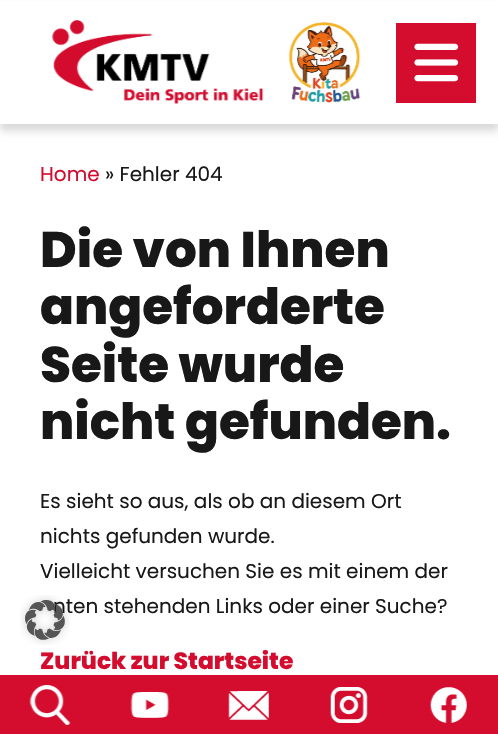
void draw(SkCanvas* canvas) {
  SkPaint paint;
  paint.setAntiAlias(true);
  auto face = [&](const char* family, int weight, float size, bool italic = false) {
    SkFontStyle style(weight, SkFontStyle::kNormal_Width,
      italic ? SkFontStyle::kItalic_Slant : SkFontStyle::kUpright_Slant);
    SkFont result(fontMgr->matchFamilyStyle(family, style), size);
    result.setSubpixel(true);
    return result;
  };
  auto paste = [&](const char* path, float x, float y, float w, float h) {
    auto image = SkImages::DeferredFromEncodedData(SkData::MakeFromFileName(path));
    canvas->drawImageRect(image, SkRect::MakeXYWH(x, y, w, h), SkSamplingOptions());
  };
  canvas->clear(0xffffffff);
  paint.setColor(0x26000000);
  paint.setMaskFilter(SkMaskFilter::MakeBlur(kNormal_SkBlurStyle, 4));
  canvas->drawRect(SkRect::MakeXYWH(0, 8, 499, 123), paint);
  paint.setMaskFilter(nullptr);
  paint.setColor(0xffffffff);
  canvas->drawRect(SkRect::MakeXYWH(0, 2, 498, 122), paint);
  paste("img/1.png", 52, 20, 212, 84);
  paste("img/2.png", 288, 22, 73, 81);
  paint.setColor(0xffd40c2e);
  canvas->drawRect(SkRect::MakeXYWH(396, 23, 80, 80), paint);
  paste("img/3.png", 414, 43, 45, 39);
  canvas->drawRect(SkRect::MakeXYWH(0, 675, 498, 59), paint);
  paste("img/4.png", 29, 685, 42, 40);
  paste("img/5.png", 130, 691, 40, 27);
  paste("img/6.png", 228, 691, 41, 29);
  paste("img/7.png", 330, 687, 38, 36);
  paste("img/8.png", 430, 687, 37, 36);
  auto f0 = face("Poppins", 400, 20);
  canvas->drawString("Home", 40, 181, f0, paint);
  paint.setColor(0xff181818);
  canvas->drawString("» Fehler 404", 105, 181, f0, paint);
  auto f1 = face("Poppins", 800, 50);
  {
    const struct { const char* s; float x, y; } items[] = {
      {"Die von Ihnen", 40, 267},
      {"angeforderte", 40, 324},
      {"Seite wurde", 40, 382},
      {"nicht gefunden.", 40, 439},
    };
    for (auto [s, x, y] : items) {
      canvas->drawString(s, x, y, f1, paint);
    }
  }
  {
    const struct { const char* s; float x, y; } items[] = {
      {"Es sieht so aus, als ob an diesem Ort", 40, 508},
      {"nichts gefunden wurde.", 40, 543},
      {"Vielleicht versuchen Sie es mit einem der", 40, 578},
      {"nten stehenden Links oder einer Suche?", 53, 613},
    };
    for (auto [s, x, y] : items) {
      canvas->drawString(s, x, y, f0, paint);
    }
  }
  auto f2 = face("Poppins", 800, 23.4f);
  paint.setColor(0xffd40c2e);
  canvas->drawString("Zurück zur Startseite", 40, 669, f2, paint);
  paste("img/9.png", 20, 595, 50, 50);
}
